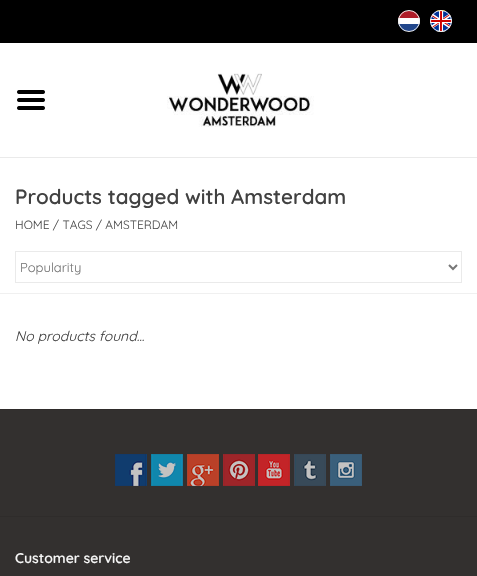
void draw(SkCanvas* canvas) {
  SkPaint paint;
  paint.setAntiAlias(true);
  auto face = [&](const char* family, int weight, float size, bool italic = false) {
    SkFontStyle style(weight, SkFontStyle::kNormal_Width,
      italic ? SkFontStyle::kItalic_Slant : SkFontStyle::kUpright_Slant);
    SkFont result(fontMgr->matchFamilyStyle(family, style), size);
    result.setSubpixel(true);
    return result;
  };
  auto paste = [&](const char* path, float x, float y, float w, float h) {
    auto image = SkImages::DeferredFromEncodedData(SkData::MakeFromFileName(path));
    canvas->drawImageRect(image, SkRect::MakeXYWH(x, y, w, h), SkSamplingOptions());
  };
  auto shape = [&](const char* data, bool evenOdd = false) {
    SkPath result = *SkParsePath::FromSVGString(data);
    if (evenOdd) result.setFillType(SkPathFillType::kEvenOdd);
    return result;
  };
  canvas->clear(0xffffffff);
  paint.setColor(0xff000000);
  canvas->drawRect(SkRect::MakeXYWH(0, 0, 477, 43), paint);
  paste("img/1.png", 398, 11, 22, 20);
  paint.setStroke(true);
  paint.setStrokeWidth(1);
  paint.setColor(0xffeeeeee);
  canvas->drawCircle(409, 21, 10.5f, paint);
  paste("img/2.png", 430, 10, 22, 22);
  canvas->drawCircle(441, 21, 10.5f, paint);
  paint.setStroke(false);
  paint.setColor(0xffeaeaea);
  canvas->drawRect(SkRect::MakeXYWH(0, 157, 477, 1), paint);
  paste("img/3.png", 167, 73, 147, 54);
  paste("img/4.png", 17, 90, 28, 20);
  paint.setColor(0xfff0f0f0);
  canvas->drawRect(SkRect::MakeXYWH(0, 293, 477, 1), paint);
  paint.setStroke(true);
  paint.setColor(0xffeaeaea);
  canvas->drawRect(SkRect::MakeXYWH(15.5f, 251.5f, 446, 31), paint);
  paint.setStrokeWidth(2);
  paint.setColor(0xff777777);
  canvas->drawPath(shape("M449 265L453 269L457 265"), paint);
  paint.setStroke(false);
  paint.setColor(0xff33302f);
  canvas->drawRect(SkRect::MakeXYWH(0, 410, 477, 166), paint);
  paint.setColor(0xff2f2c2b);
  canvas->drawRect(SkRect::MakeXYWH(0, 409, 477, 1), paint);
  paste("img/5.png", 115, 454, 32, 32);
  paste("img/6.png", 151, 454, 32, 32);
  paste("img/7.png", 187, 454, 32, 32);
  paste("img/8.png", 223, 454, 32, 32);
  paste("img/9.png", 258, 454, 32, 32);
  paste("img/10.png", 294, 454, 32, 32);
  paste("img/11.png", 330, 454, 32, 32);
  canvas->drawRect(SkRect::MakeXYWH(0, 516, 477, 1), paint);
  auto f0 = face("Quicksand", 600, 20.6f);
  paint.setColor(0xff414141);
  canvas->drawString("Products tagged with Amsterdam", 15, 204, f0, paint);
  auto f1 = face("Quicksand", 400, 12);
  paint.setColor(0xff505050);
  canvas->drawString("HOME / TAGS / AMSTERDAM", 15, 229, f1, paint);
  auto f2 = face("Quicksand", 400, 13);
  paint.setColor(0xff777777);
  canvas->drawString("Popularity", 20, 272, f2, paint);
  auto f3 = face("Quicksand", 400, 14, true);
  paint.setColor(0xff414141);
  canvas->drawString("No products found...", 15, 341, f3, paint);
  auto f4 = face("Quicksand", 600, 14);
  paint.setColor(0xfff7f7f7);
  canvas->drawString("Customer service", 15, 563, f4, paint);
}
